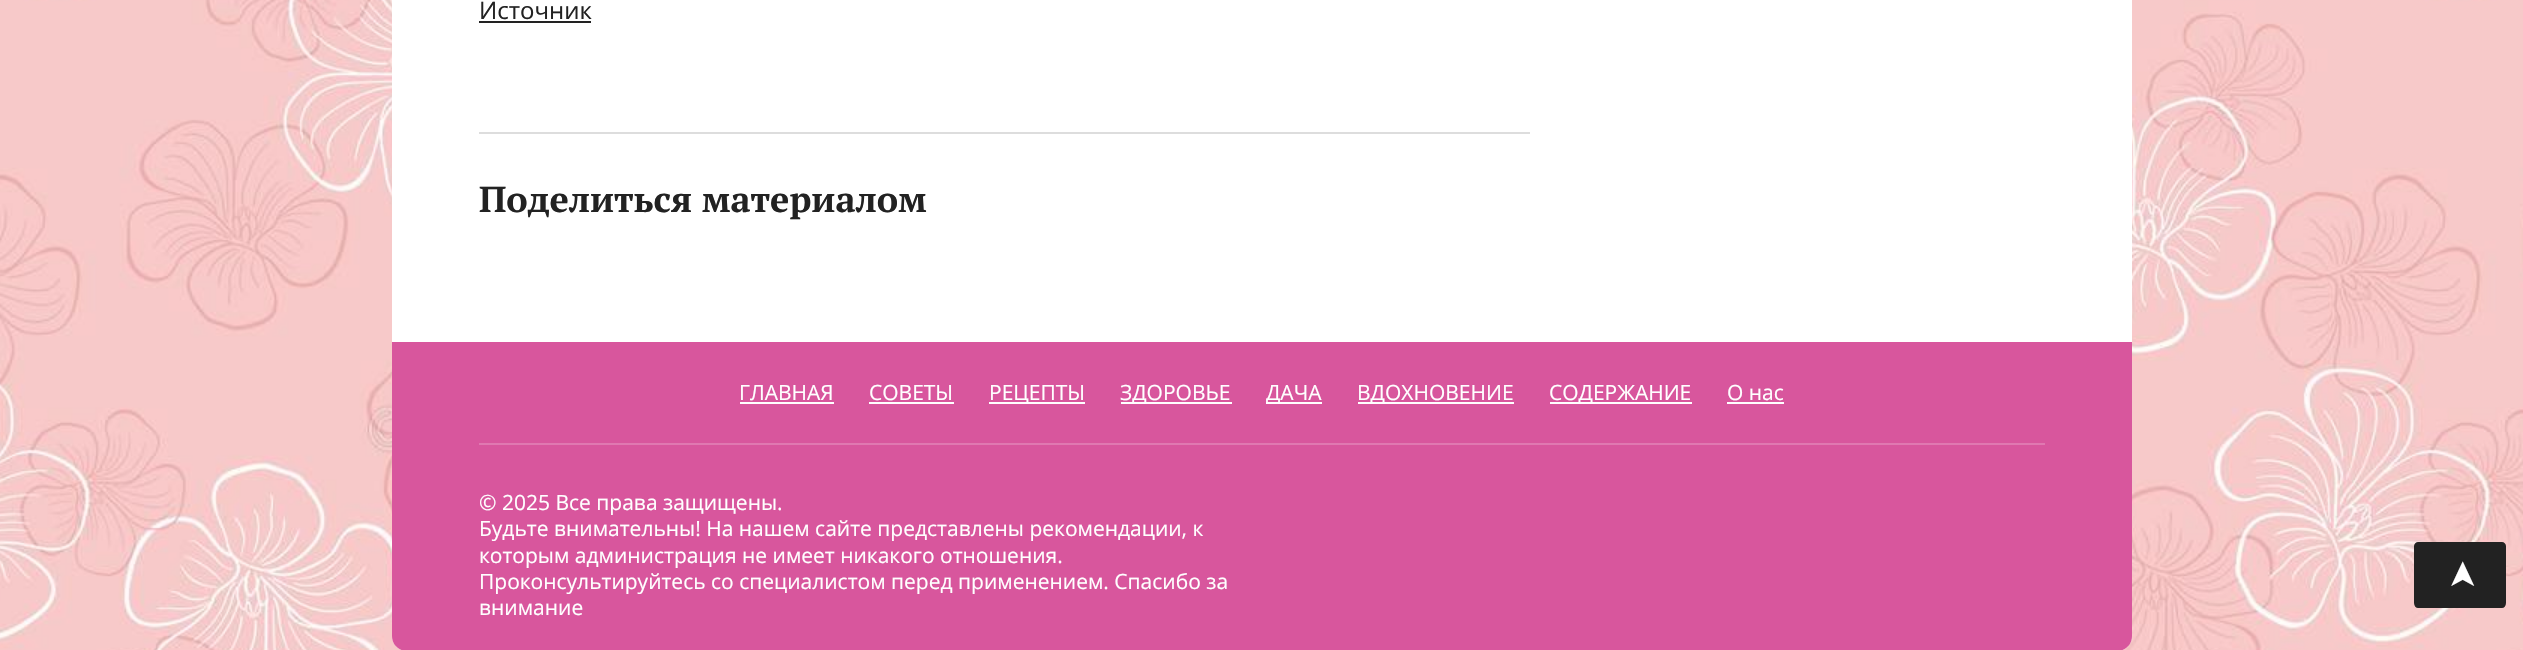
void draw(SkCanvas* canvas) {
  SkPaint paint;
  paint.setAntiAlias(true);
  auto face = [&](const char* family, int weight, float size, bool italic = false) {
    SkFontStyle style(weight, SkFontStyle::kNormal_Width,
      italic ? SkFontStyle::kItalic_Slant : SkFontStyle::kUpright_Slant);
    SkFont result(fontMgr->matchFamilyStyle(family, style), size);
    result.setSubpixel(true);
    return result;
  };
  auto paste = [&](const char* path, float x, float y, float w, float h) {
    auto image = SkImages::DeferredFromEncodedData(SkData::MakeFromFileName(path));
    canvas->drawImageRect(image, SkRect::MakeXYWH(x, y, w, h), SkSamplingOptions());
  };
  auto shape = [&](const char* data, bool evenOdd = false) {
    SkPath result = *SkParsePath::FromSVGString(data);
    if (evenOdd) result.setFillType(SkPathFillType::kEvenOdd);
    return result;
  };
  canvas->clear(0xffffffff);
  paste("img/1.png", 0, 0, 2523, 650);
  paint.setColor(0xffffffff);
  canvas->drawRoundRect(SkRect::MakeXYWH(392, -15, 1740, 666), 15, 15, paint);
  paint.setColor(0xff222222);
  canvas->drawRect(SkRect::MakeXYWH(479, 21, 112, 2), paint);
  paint.setColor(0xffdddddd);
  canvas->drawRect(SkRect::MakeXYWH(479, 132, 1051, 2), paint);
  paint.setColor(0xffd8569d);
  canvas->drawPath(shape("M392 342H2132V636C2132 644.5 2125.5 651 2117 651H407C398.5 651 392 644.5 392 636Z"), paint);
  {
    const struct { float x, y, w, h; SkColor color; } items[] = {
      {479, 443, 1566, 2, 0xffe078b1},
      {740, 402, 94, 2, 0xffffffff},
      {869, 402, 85, 2, 0xffffffff},
      {989, 402, 96, 2, 0xffffffff},
      {1121, 402, 111, 2, 0xffffffff},
      {1266, 402, 56, 2, 0xffffffff},
      {1358, 402, 156, 2, 0xffffffff},
      {1550, 402, 142, 2, 0xffffffff},
      {1727, 402, 57, 2, 0xffffffff},
    };
    for (auto [x, y, w, h, color] : items) {
      paint.setColor(color);
      canvas->drawRect(SkRect::MakeXYWH(x, y, w, h), paint);
    }
  }
  paint.setColor(0xff222222);
  canvas->drawPath(shape("M2414 603V546C2414 544 2416 542 2418 542H2502C2504 542 2506 544 2506 546V603C2506 606 2504 608 2502 608H2418C2416 608 2414 606 2414 603Z"), paint);
  auto f0 = face("Open Sans", 400, 24);
  canvas->drawString("Источник", 479, 19, f0, paint);
  auto f1 = face("PT Serif", 700, 36);
  canvas->drawString("Поделиться материалом", 479, 212, f1, paint);
  auto f2 = face("Open Sans", 400, 21);
  paint.setColor(0xffffffff);
  {
    const struct { const char* s; float x, y; } items[] = {
      {"ГЛАВНАЯ", 739, 400},
      {"СОВЕТЫ", 869, 400},
      {"РЕЦЕПТЫ", 989, 400},
      {"ЗДОРОВЬЕ", 1120, 400},
      {"ДАЧА", 1266, 400},
      {"ВДОХНОВЕНИЕ", 1357, 400},
      {"СОДЕРЖАНИЕ", 1549, 400},
      {"О нас", 1727, 400},
      {"© 2025 Все права защищены.", 479, 510},
      {"Будьте внимательны! На нашем сайте представлены рекомендации, к", 479, 536},
      {"которым администрация не имеет никакого отношения.", 479, 563},
      {"Проконсультируйтесь со специалистом перед применением. Спасибо за", 479, 589},
      {"внимание", 479, 615},
    };
    for (auto [s, x, y] : items) {
      canvas->drawString(s, x, y, f2, paint);
    }
  }
  auto f3 = face("DejaVu Sans", 400, 36);
  canvas->save();
  canvas->rotate(-90, 2474, 590);
  canvas->drawString("➤", 2474, 590, f3, paint);
  canvas->restore();
}
